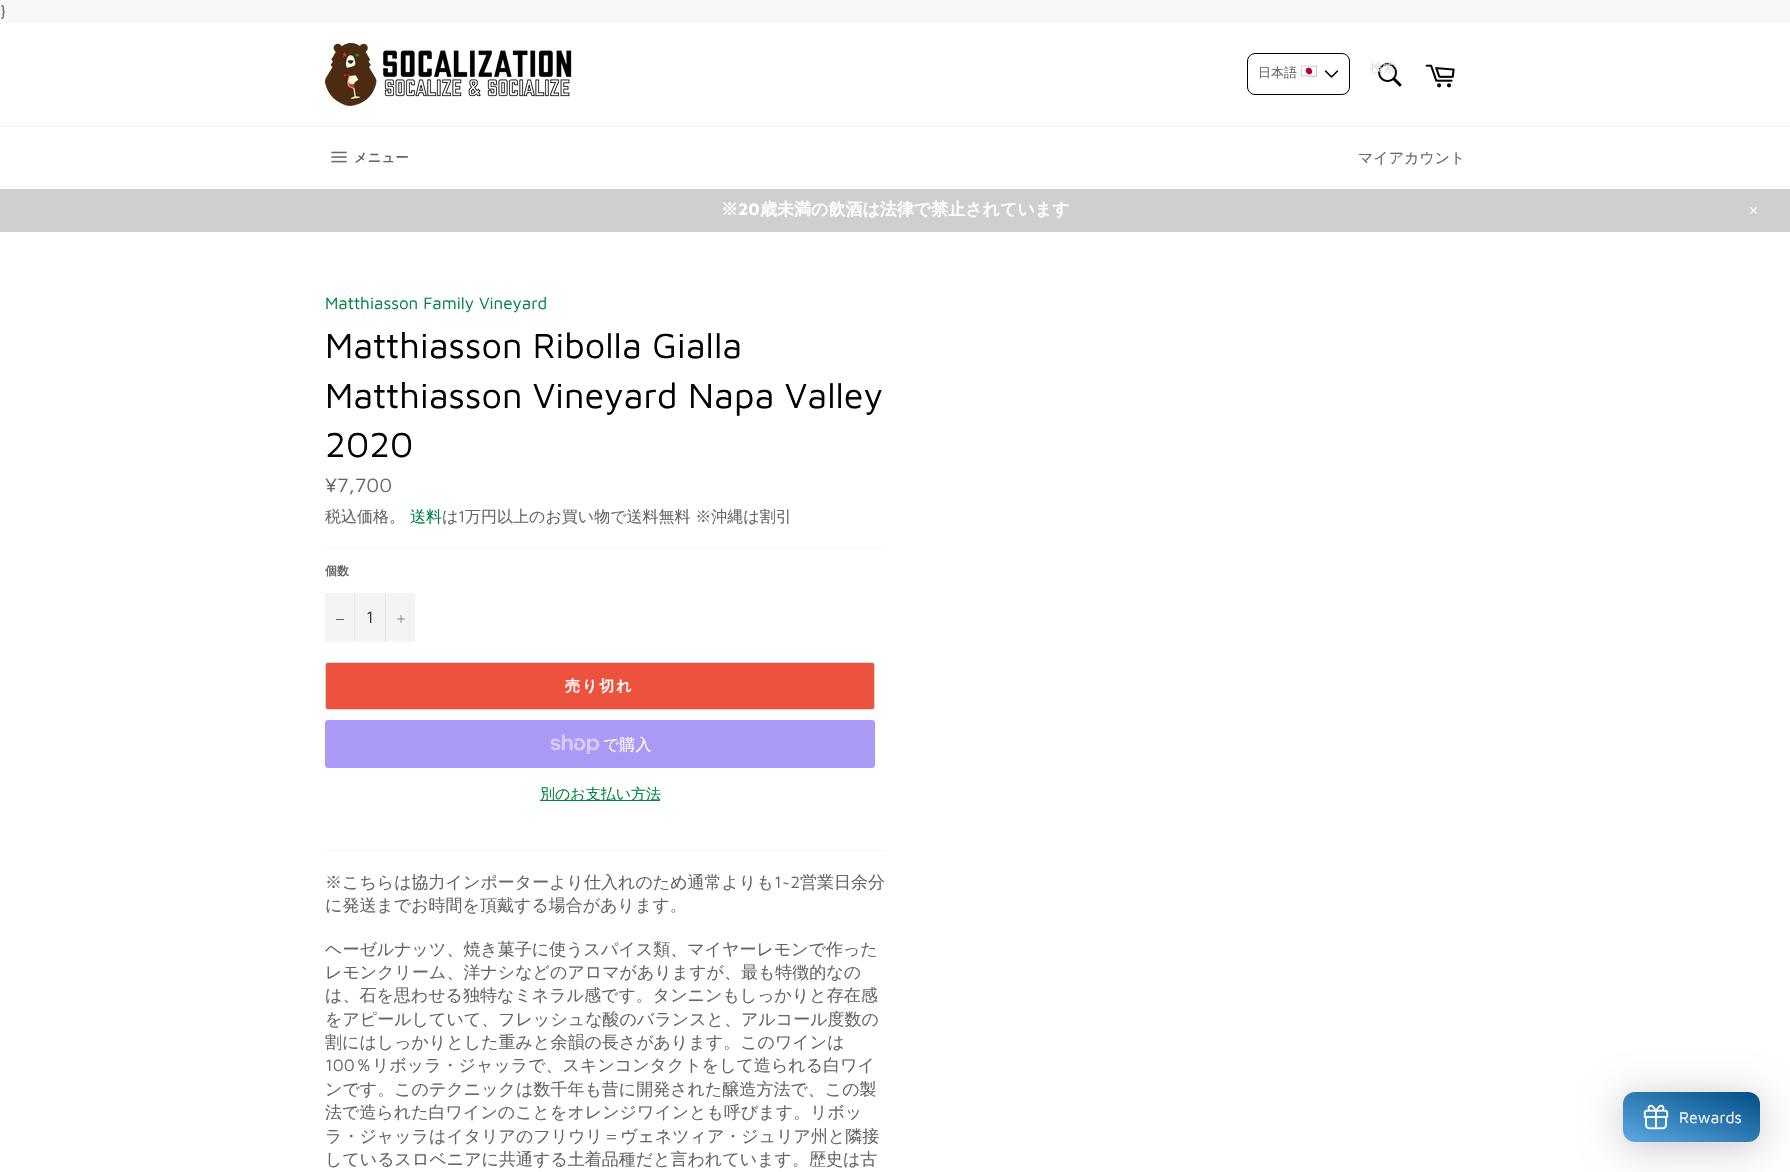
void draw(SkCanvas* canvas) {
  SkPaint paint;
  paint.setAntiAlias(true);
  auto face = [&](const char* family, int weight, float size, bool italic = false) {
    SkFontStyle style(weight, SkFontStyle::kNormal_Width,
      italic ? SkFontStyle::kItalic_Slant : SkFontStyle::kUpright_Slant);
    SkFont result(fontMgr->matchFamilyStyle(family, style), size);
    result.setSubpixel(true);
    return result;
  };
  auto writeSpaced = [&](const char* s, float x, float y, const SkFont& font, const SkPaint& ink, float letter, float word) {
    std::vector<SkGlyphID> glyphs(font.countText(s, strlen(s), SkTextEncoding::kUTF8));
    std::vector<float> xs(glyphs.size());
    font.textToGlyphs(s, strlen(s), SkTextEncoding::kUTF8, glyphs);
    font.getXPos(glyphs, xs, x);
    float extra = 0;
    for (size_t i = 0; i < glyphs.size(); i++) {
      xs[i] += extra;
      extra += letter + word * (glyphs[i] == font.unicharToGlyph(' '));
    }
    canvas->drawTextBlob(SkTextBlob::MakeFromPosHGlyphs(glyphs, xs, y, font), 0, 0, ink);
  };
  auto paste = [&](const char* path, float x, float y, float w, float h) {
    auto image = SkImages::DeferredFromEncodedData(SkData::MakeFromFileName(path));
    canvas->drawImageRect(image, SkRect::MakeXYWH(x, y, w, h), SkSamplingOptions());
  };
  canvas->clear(0xfff7f7f7);
  paint.setColor(0xffffffff);
  canvas->drawRect(SkRect::MakeXYWH(0, 23, 1790, 103), paint);
  paste("img/1.png", 325, 43, 247, 63);
  paint.setStroke(true);
  paint.setStrokeWidth(1);
  paint.setColor(0xff000000);
  canvas->drawRoundRect(SkRect::MakeXYWH(1247.5f, 53.5f, 102, 41), 7.5f, 7.5f, paint);
  paste("img/2.png", 1301, 65, 16, 12);
  paste("img/3.png", 1324, 70, 15, 8);
  paste("img/4.png", 1378, 63, 24, 24);
  paste("img/5.png", 1425, 64, 30, 24);
  paint.setStroke(false);
  paint.setColor(0xffffffff);
  canvas->drawRect(SkRect::MakeXYWH(0, 127, 1790, 62), paint);
  paint.setColor(0xfff2f2f2);
  canvas->drawRect(SkRect::MakeXYWH(0, 126, 1790, 1), paint);
  paste("img/6.png", 331, 151, 16, 12);
  paint.setColor(0xffcfcfcf);
  canvas->drawRect(SkRect::MakeXYWH(0, 189, 1790, 43), paint);
  paste("img/7.png", 1750, 207, 7, 7);
  {
    const struct { float x, y, w, h; SkColor color; } items[] = {
      {0, 232, 1790, 940, 0xffffffff},
      {325, 547, 560, 1, 0xfff7f7f7},
      {325, 593, 90, 49, 0xfff4f4f4},
      {354, 593, 1, 49, 0xffe7e7e7},
      {336, 619, 8, 1, 0xff666666},
      {385, 593, 1, 49, 0xffe7e7e7},
    };
    for (auto [x, y, w, h, color] : items) {
      paint.setColor(color);
      canvas->drawRect(SkRect::MakeXYWH(x, y, w, h), paint);
    }
  }
  paste("img/8.png", 397, 615, 8, 8);
  paint.setColor(0xffec523e);
  canvas->drawRoundRect(SkRect::MakeXYWH(325.5f, 662.5f, 549, 47), 2.5f, 2.5f, paint);
  paint.setStroke(true);
  paint.setColor(0xffd5d5d5);
  canvas->drawRoundRect(SkRect::MakeXYWH(325.5f, 662.5f, 549, 47), 2.5f, 2.5f, paint);
  paint.setStroke(false);
  paint.setColor(0xffaa99f5);
  canvas->drawRoundRect(SkRect::MakeXYWH(325, 720, 550, 48), 3, 3, paint);
  paste("img/9.png", 550, 734, 50, 20);
  paint.setColor(0xff008542);
  canvas->drawRect(SkRect::MakeXYWH(540, 800, 120, 1), paint);
  paint.setColor(0xfff7f7f7);
  canvas->drawRect(SkRect::MakeXYWH(325, 850, 560, 1), paint);
  paint.setColor(0x38000000);
  paint.setMaskFilter(SkMaskFilter::MakeBlur(kNormal_SkBlurStyle, 20));
  canvas->drawRoundRect(SkRect::MakeXYWH(1623, 1097, 137, 50), 12, 12, paint);
  paint.setMaskFilter(nullptr);
  {
    const SkColor colors[] = {0xff014f86, 0xff5ba9e0};
    const float stops[] = {0, 1};
    const SkPoint ends[] = {{1708, 1073}, {1675, 1161}};
    paint.setShader(SkGradientShader::MakeLinear(ends, colors, stops, 2, SkTileMode::kClamp));
    paint.setAlpha(255);
  }
  canvas->drawRoundRect(SkRect::MakeXYWH(1623, 1092, 137, 50), 12, 12, paint);
  paste("img/10.png", 1643, 1104, 26, 26);
  auto f0 = face("Maven Pro", 400, 17);
  paint.setShader(nullptr);
  paint.setColor(0xff666666);
  canvas->drawString("}", 0, 17, f0, paint);
  auto f1 = face("WenQuanYi Zen Hei", 500, 13);
  canvas->drawString("日本語", 1258, 77, f1, paint);
  paint.setColor(0xffe0e0e0);
  canvas->drawString("検索", 1370, 72, f1, paint);
  auto f2 = face("WenQuanYi Zen Hei", 700, 13);
  paint.setColor(0xff666666);
  writeSpaced("メニュー", 354, 162, f2, paint, 0.5f, 0);
  auto f3 = face("WenQuanYi Zen Hei", 500, 15);
  canvas->drawString("マイアカウント", 1358, 163, f3, paint);
  auto f4 = face("WenQuanYi Zen Hei", 700, 17);
  paint.setColor(0xffffffff);
  canvas->drawString("※", 721, 215, f4, paint);
  auto f5 = face("Maven Pro", 700, 17);
  canvas->drawString("20", 738, 215, f5, paint);
  canvas->drawString("歳未満の飲酒は法律で禁止されています", 760, 215, f4, paint);
  paint.setColor(0xff008542);
  canvas->drawString("Matthiasson Family Vineyard", 325, 309, f0, paint);
  auto f6 = face("Maven Pro", 400, 36);
  paint.setColor(0xff030303);
  {
    const struct { const char* s; float x, y; } items[] = {
      {"Matthiasson Ribolla Gialla", 325, 358},
      {"Matthiasson Vineyard Napa Valley", 325, 408},
      {"2020", 325, 457},
    };
    for (auto [s, x, y] : items) {
      canvas->drawString(s, x, y, f6, paint);
    }
  }
  auto f7 = face("Maven Pro", 400, 20);
  paint.setColor(0xff666666);
  canvas->drawString("¥7,700", 325, 492, f7, paint);
  auto f8 = face("WenQuanYi Zen Hei", 500, 16);
  canvas->drawString("税込価格。", 325, 522, f8, paint);
  paint.setColor(0xff008542);
  canvas->drawString("送料", 410, 522, f8, paint);
  paint.setColor(0xff666666);
  canvas->drawString("は", 442, 522, f8, paint);
  auto f9 = face("Maven Pro", 400, 16);
  canvas->drawString("1", 458, 522, f9, paint);
  canvas->drawString("万円以上のお買い物で送料無料 ※沖縄は割引", 465, 522, f8, paint);
  auto f10 = face("WenQuanYi Zen Hei", 700, 12);
  canvas->drawString("個数", 325, 575, f10, paint);
  paint.setColor(0xff333333);
  canvas->drawString("1", 366, 623, f0, paint);
  auto f11 = face("WenQuanYi Zen Hei", 700, 15);
  paint.setColor(0xffffffff);
  writeSpaced("売り切れ", 565, 691, f11, paint, 2, 0);
  canvas->drawString("で購入", 603, 750, f8, paint);
  paint.setColor(0xff008542);
  canvas->drawString("別のお支払い方法", 540, 799, f3, paint);
  auto f12 = face("WenQuanYi Zen Hei", 500, 17);
  paint.setColor(0xff666666);
  canvas->drawString("※こちらは協力インポーターより仕入れのため通常よりも", 325, 888, f12, paint);
  canvas->drawString("1~2", 774, 888, f0, paint);
  {
    const struct { const char* s; float x, y; } items[] = {
      {"営業日余分", 800, 888},
      {"に発送までお時間を頂戴する場合があります。", 325, 911},
      {"ヘーゼルナッツ、焼き菓子に使うスパイス類、マイヤーレモンで作った", 325, 955},
      {"レモンクリーム、洋ナシなどのアロマがありますが、最も特徴的なの", 325, 978},
      {"は、石を思わせる独特なミネラル感です。タンニンもしっかりと存在感", 325, 1001},
      {"をアピールしていて、フレッシュな酸のバランスと、アルコール度数の", 325, 1025},
      {"割にはしっかりとした重みと余韻の長さがあります。このワインは", 325, 1048},
    };
    for (auto [s, x, y] : items) {
      canvas->drawString(s, x, y, f12, paint);
    }
  }
  canvas->drawString("100", 325, 1071, f0, paint);
  {
    const struct { const char* s; float x, y; } items[] = {
      {"％リボッラ・ジャッラで、スキンコンタクトをして造られる白ワイ", 355, 1071},
      {"ンです。このテクニックは数千年も昔に開発された醸造方法で、この製", 325, 1095},
      {"法で造られた白ワインのことをオレンジワインとも呼びます。リボッ", 325, 1118},
      {"ラ・ジャッラはイタリアのフリウリ＝ヴェネツィア・ジュリア州と隣接", 325, 1142},
      {"しているスロベニアに共通する土着品種だと言われています。歴史は古", 325, 1165},
    };
    for (auto [s, x, y] : items) {
      canvas->drawString(s, x, y, f12, paint);
    }
  }
  paint.setColor(0xffffffff);
  canvas->drawString("Rewards", 1679, 1123, f9, paint);
}
